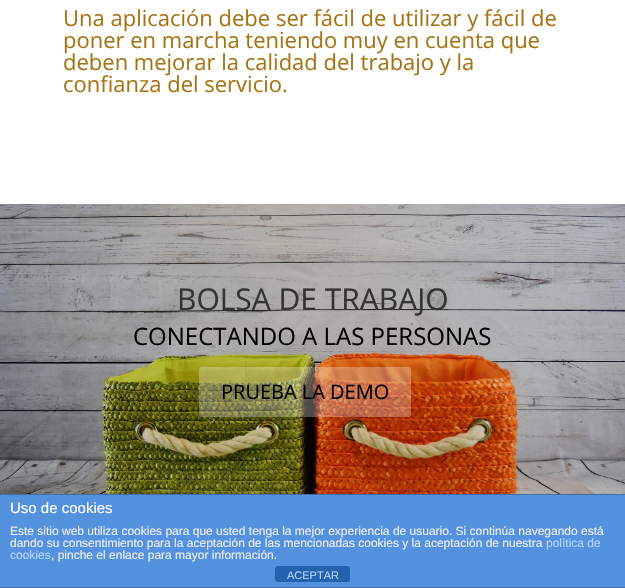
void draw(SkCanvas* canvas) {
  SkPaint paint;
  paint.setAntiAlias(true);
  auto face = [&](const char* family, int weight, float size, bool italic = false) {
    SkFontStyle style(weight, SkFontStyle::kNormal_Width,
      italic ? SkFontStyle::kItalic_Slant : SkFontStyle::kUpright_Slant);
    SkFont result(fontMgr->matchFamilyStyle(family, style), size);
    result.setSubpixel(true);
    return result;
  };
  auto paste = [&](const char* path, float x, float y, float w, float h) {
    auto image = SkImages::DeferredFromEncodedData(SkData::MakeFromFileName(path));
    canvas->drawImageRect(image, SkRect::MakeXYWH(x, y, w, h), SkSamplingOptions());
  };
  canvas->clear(0xffffffff);
  paste("img/1.png", 0, 204, 625, 290);
  paint.setColor(0x47ffffff);
  canvas->drawRoundRect(SkRect::MakeXYWH(199, 367, 212, 50), 3, 3, paint);
  {
    const struct { float x, y, w, h; SkColor color; } items[] = {
      {0, 495, 625, 92, 0xff5492e0},
      {0, 494, 625, 1, 0xff3f6da7},
      {0, 587, 625, 1, 0xff3f6da7},
    };
    for (auto [x, y, w, h, color] : items) {
      paint.setColor(color);
      canvas->drawRect(SkRect::MakeXYWH(x, y, w, h), paint);
    }
  }
  paint.setColor(0xff2462b0);
  canvas->drawRoundRect(SkRect::MakeXYWH(275, 566, 75, 16), 3, 3, paint);
  auto f0 = face("Open Sans", 400, 22);
  paint.setColor(0xffa77415);
  {
    const struct { const char* s; float x, y; } items[] = {
      {"Una aplicación debe ser fácil de utilizar y fácil de", 63, 26},
      {"poner en marcha teniendo muy en cuenta que", 63, 48},
      {"deben mejorar la calidad del trabajo y la", 63, 70},
      {"confianza del servicio.", 63, 92},
    };
    for (auto [s, x, y] : items) {
      canvas->drawString(s, x, y, f0, paint);
    }
  }
  auto f1 = face("Open Sans", 400, 30);
  paint.setColor(0xff333333);
  canvas->drawString("BOLSA DE TRABAJO", 177, 310, f1, paint);
  auto f2 = face("Open Sans", 400, 24);
  paint.setColor(0xff000000);
  canvas->drawString("CONECTANDO A LAS PERSONAS", 133, 345, f2, paint);
  auto f3 = face("Open Sans", 400, 20);
  canvas->drawString("PRUEBA LA DEMO", 221, 399, f3, paint);
  auto f4 = face("Liberation Sans", 400, 15);
  paint.setColor(0xffffffff);
  canvas->drawString("Uso de cookies", 10, 513, f4, paint);
  auto f5 = face("Liberation Sans", 400, 12);
  paint.setColor(0xffeeeeee);
  canvas->drawString("Este sitio web utiliza cookies para que usted tenga la mejor experiencia de usuario. Si continúa navegando está", 10, 535, f5, paint);
  canvas->drawString("dando su consentimiento para la aceptación de las mencionadas cookies y la aceptación de nuestra", 10, 547, f5, paint);
  paint.setColor(0xffb7d7ff);
  canvas->drawString("política de", 546, 547, f5, paint);
  canvas->drawString("cookies", 10, 559, f5, paint);
  paint.setColor(0xffeeeeee);
  canvas->drawString(", pinche el enlace para mayor información.", 51, 559, f5, paint);
  auto f6 = face("Liberation Sans", 400, 11);
  paint.setColor(0xffb7d7ff);
  canvas->drawString("ACEPTAR", 287, 579, f6, paint);
}
